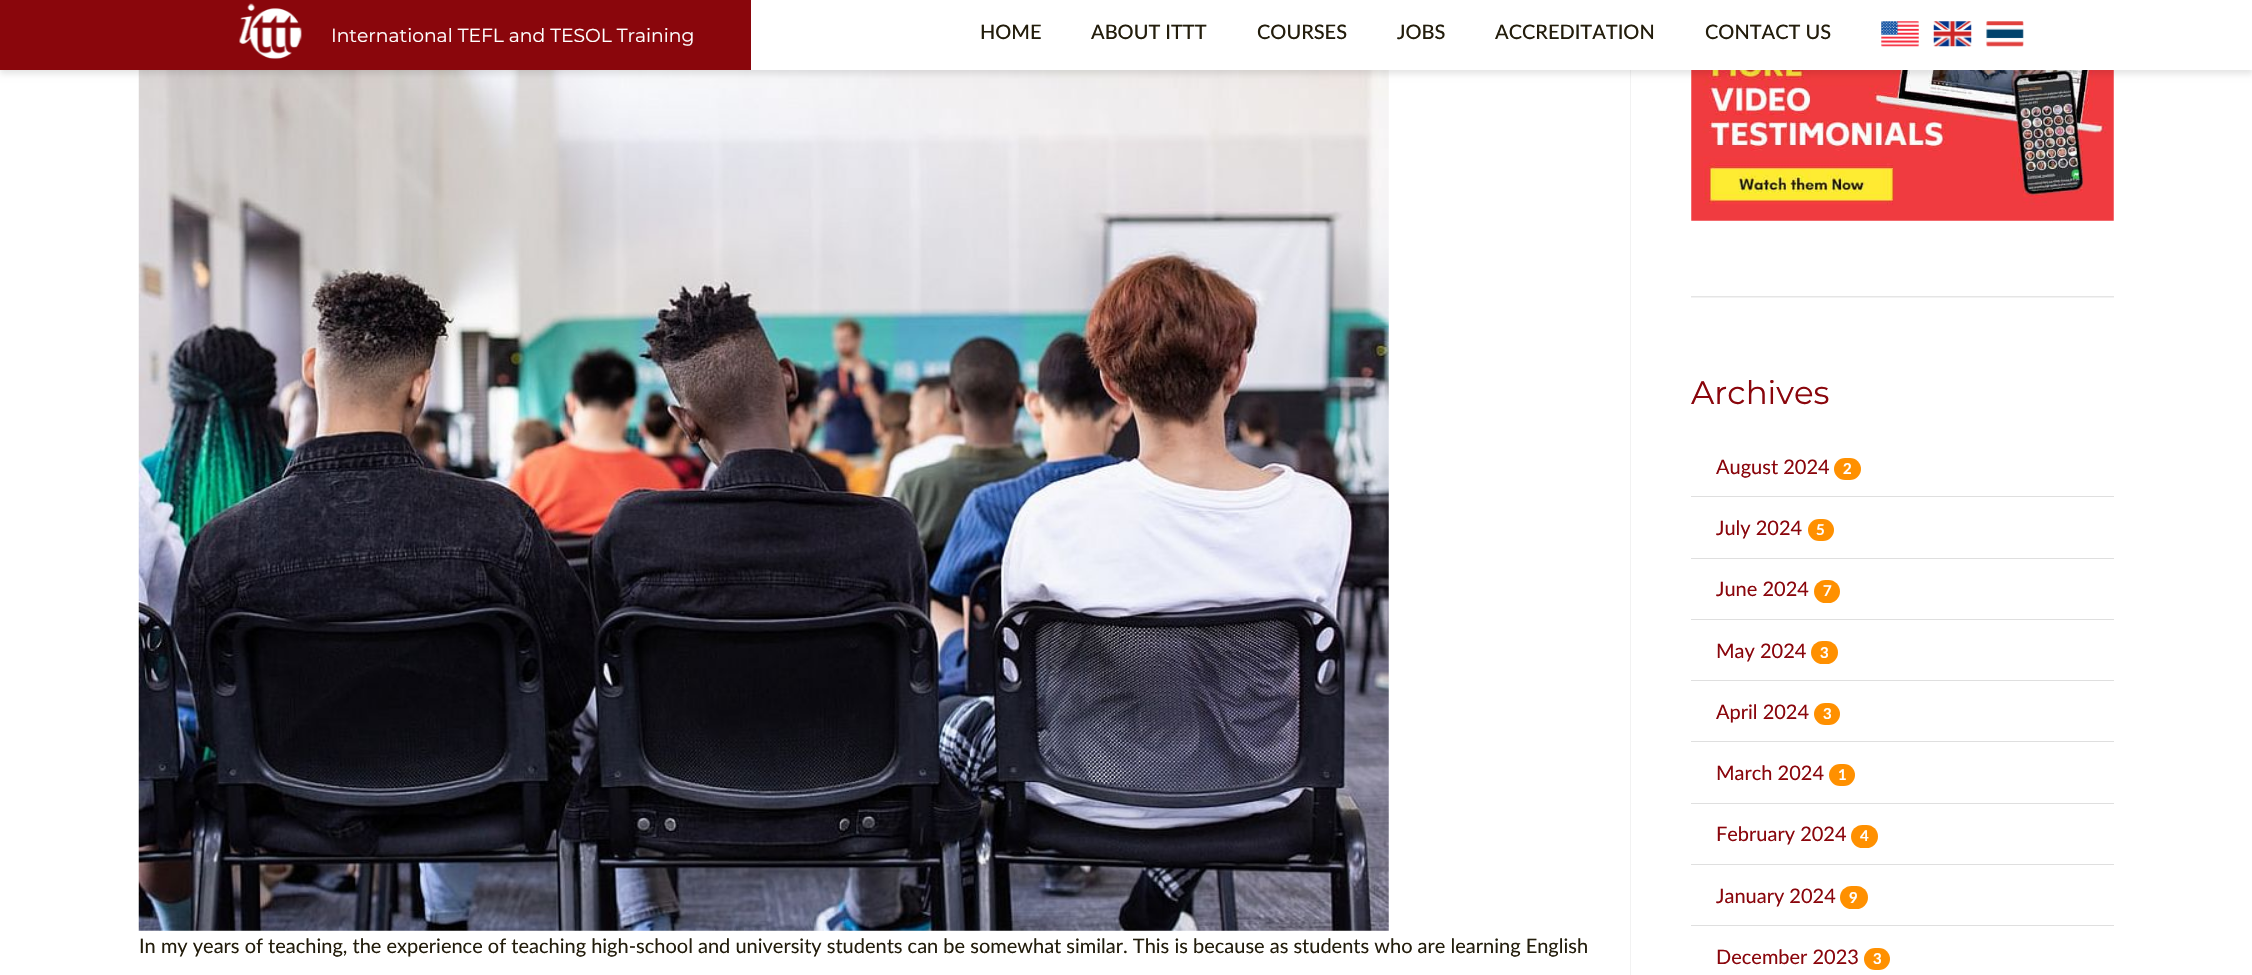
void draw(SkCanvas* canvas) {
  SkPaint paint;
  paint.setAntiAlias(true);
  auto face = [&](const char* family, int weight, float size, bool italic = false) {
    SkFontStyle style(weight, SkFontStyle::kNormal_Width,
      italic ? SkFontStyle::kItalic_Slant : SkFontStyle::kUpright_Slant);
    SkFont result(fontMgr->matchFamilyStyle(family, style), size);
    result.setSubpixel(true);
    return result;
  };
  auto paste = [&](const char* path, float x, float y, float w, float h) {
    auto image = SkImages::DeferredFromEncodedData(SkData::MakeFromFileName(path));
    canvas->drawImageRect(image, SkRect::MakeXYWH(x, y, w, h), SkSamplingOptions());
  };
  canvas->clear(0xffffffff);
  paste("img/5.png", 138, 70, 1251, 861);
  paint.setColor(0xfff2f2f2);
  canvas->drawRect(SkRect::MakeXYWH(1630, 70, 1, 905), paint);
  paste("img/6.png", 1691, 70, 423, 151);
  paint.setColor(0x1a000000);
  paint.setMaskFilter(SkMaskFilter::MakeBlur(kNormal_SkBlurStyle, 3));
  canvas->drawRect(SkRect::MakeXYWH(0, 4, 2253, 70), paint);
  paint.setMaskFilter(nullptr);
  paint.setColor(0xffffffff);
  canvas->drawRect(SkRect::MakeXYWH(751, 0, 1501, 70), paint);
  paint.setColor(0xff8a060c);
  canvas->drawRect(SkRect::MakeXYWH(0, 0, 751, 70), paint);
  paste("img/1.png", 239, 3, 63, 56);
  paste("img/2.png", 1881, 21, 38, 26);
  paste("img/3.png", 1933, 21, 39, 26);
  paste("img/4.png", 1986, 21, 38, 26);
  paint.setColor(0xfff2f2f2);
  canvas->drawRect(SkRect::MakeXYWH(1691, 297, 423, 1), paint);
  paint.setColor(0xffe5e5e5);
  canvas->drawRect(SkRect::MakeXYWH(1691, 296, 423, 1), paint);
  paint.setColor(0xffff9000);
  canvas->drawRoundRect(SkRect::MakeXYWH(1834, 458, 27, 22), 11, 11, paint);
  paint.setColor(0xffdfdfdf);
  canvas->drawRect(SkRect::MakeXYWH(1691, 496, 423, 1), paint);
  paint.setColor(0xffff9000);
  canvas->drawRoundRect(SkRect::MakeXYWH(1808, 519, 26, 22), 11, 11, paint);
  paint.setColor(0xffdfdfdf);
  canvas->drawRect(SkRect::MakeXYWH(1691, 558, 423, 1), paint);
  paint.setColor(0xffff9000);
  canvas->drawRoundRect(SkRect::MakeXYWH(1814, 580, 26, 23), 11.5f, 11.5f, paint);
  paint.setColor(0xffdfdfdf);
  canvas->drawRect(SkRect::MakeXYWH(1691, 619, 423, 1), paint);
  paint.setColor(0xffff9000);
  canvas->drawRoundRect(SkRect::MakeXYWH(1811, 641, 27, 23), 11.5f, 11.5f, paint);
  paint.setColor(0xffdfdfdf);
  canvas->drawRect(SkRect::MakeXYWH(1691, 680, 423, 1), paint);
  paint.setColor(0xffff9000);
  canvas->drawRoundRect(SkRect::MakeXYWH(1814, 703, 26, 22), 11, 11, paint);
  paint.setColor(0xffdfdfdf);
  canvas->drawRect(SkRect::MakeXYWH(1691, 741, 423, 1), paint);
  paint.setColor(0xffff9000);
  canvas->drawRoundRect(SkRect::MakeXYWH(1829, 764, 26, 22), 11, 11, paint);
  paint.setColor(0xffdfdfdf);
  canvas->drawRect(SkRect::MakeXYWH(1691, 803, 423, 1), paint);
  paint.setColor(0xffff9000);
  canvas->drawRoundRect(SkRect::MakeXYWH(1851, 825, 27, 23), 11.5f, 11.5f, paint);
  paint.setColor(0xffdfdfdf);
  canvas->drawRect(SkRect::MakeXYWH(1691, 864, 423, 1), paint);
  paint.setColor(0xffff9000);
  canvas->drawRoundRect(SkRect::MakeXYWH(1840, 886, 28, 23), 11.5f, 11.5f, paint);
  paint.setColor(0xffdfdfdf);
  canvas->drawRect(SkRect::MakeXYWH(1691, 925, 423, 1), paint);
  paint.setColor(0xffff9000);
  canvas->drawRoundRect(SkRect::MakeXYWH(1864, 948, 26, 22), 11, 11, paint);
  auto f0 = face("Montserrat", 400, 18.75f);
  paint.setColor(0xffffffff);
  canvas->drawString("International TEFL and TESOL Training", 331, 42, f0, paint);
  auto f1 = face("Lato", 500, 20);
  paint.setColor(0xff231d0c);
  {
    const struct { const char* s; float x, y; } items[] = {
      {"HOME", 980, 39},
      {"ABOUT ITTT", 1091, 39},
      {"COURSES", 1257, 39},
      {"JOBS", 1397, 39},
      {"ACCREDITATION", 1495, 39},
      {"CONTACT US", 1705, 39},
    };
    for (auto [s, x, y] : items) {
      canvas->drawString(s, x, y, f1, paint);
    }
  }
  auto f2 = face("Lato", 400, 20);
  canvas->drawString("In my years of teaching, the experience of teaching high-school and university students can be somewhat similar. This is because as students who are learning English", 139, 953, f2, paint);
  auto f3 = face("Montserrat", 400, 32.5f);
  paint.setColor(0xff8a060c);
  canvas->drawString("Archives", 1691, 404, f3, paint);
  canvas->drawString("August 2024", 1716, 474, f2, paint);
  auto f4 = face("Lato", 700, 15);
  paint.setColor(0xffffffff);
  canvas->drawString("2", 1843, 474, f4, paint);
  paint.setColor(0xff8a060c);
  canvas->drawString("July 2024", 1716, 535, f2, paint);
  paint.setColor(0xffffffff);
  canvas->drawString("5", 1816, 535, f4, paint);
  paint.setColor(0xff8a060c);
  canvas->drawString("June 2024", 1716, 596, f2, paint);
  paint.setColor(0xffffffff);
  canvas->drawString("7", 1823, 596, f4, paint);
  paint.setColor(0xff8a060c);
  canvas->drawString("May 2024", 1716, 658, f2, paint);
  paint.setColor(0xffffffff);
  canvas->drawString("3", 1820, 658, f4, paint);
  paint.setColor(0xff8a060c);
  canvas->drawString("April 2024", 1716, 719, f2, paint);
  paint.setColor(0xffffffff);
  canvas->drawString("3", 1823, 719, f4, paint);
  paint.setColor(0xff8a060c);
  canvas->drawString("March 2024", 1716, 780, f2, paint);
  paint.setColor(0xffffffff);
  canvas->drawString("1", 1838, 780, f4, paint);
  paint.setColor(0xff8a060c);
  canvas->drawString("February 2024", 1716, 841, f2, paint);
  paint.setColor(0xffffffff);
  canvas->drawString("4", 1860, 841, f4, paint);
  paint.setColor(0xff8a060c);
  canvas->drawString("January 2024", 1716, 903, f2, paint);
  paint.setColor(0xffffffff);
  canvas->drawString("9", 1849, 903, f4, paint);
  paint.setColor(0xff8a060c);
  canvas->drawString("December 2023", 1716, 964, f2, paint);
  paint.setColor(0xffffffff);
  canvas->drawString("3", 1873, 964, f4, paint);
}
